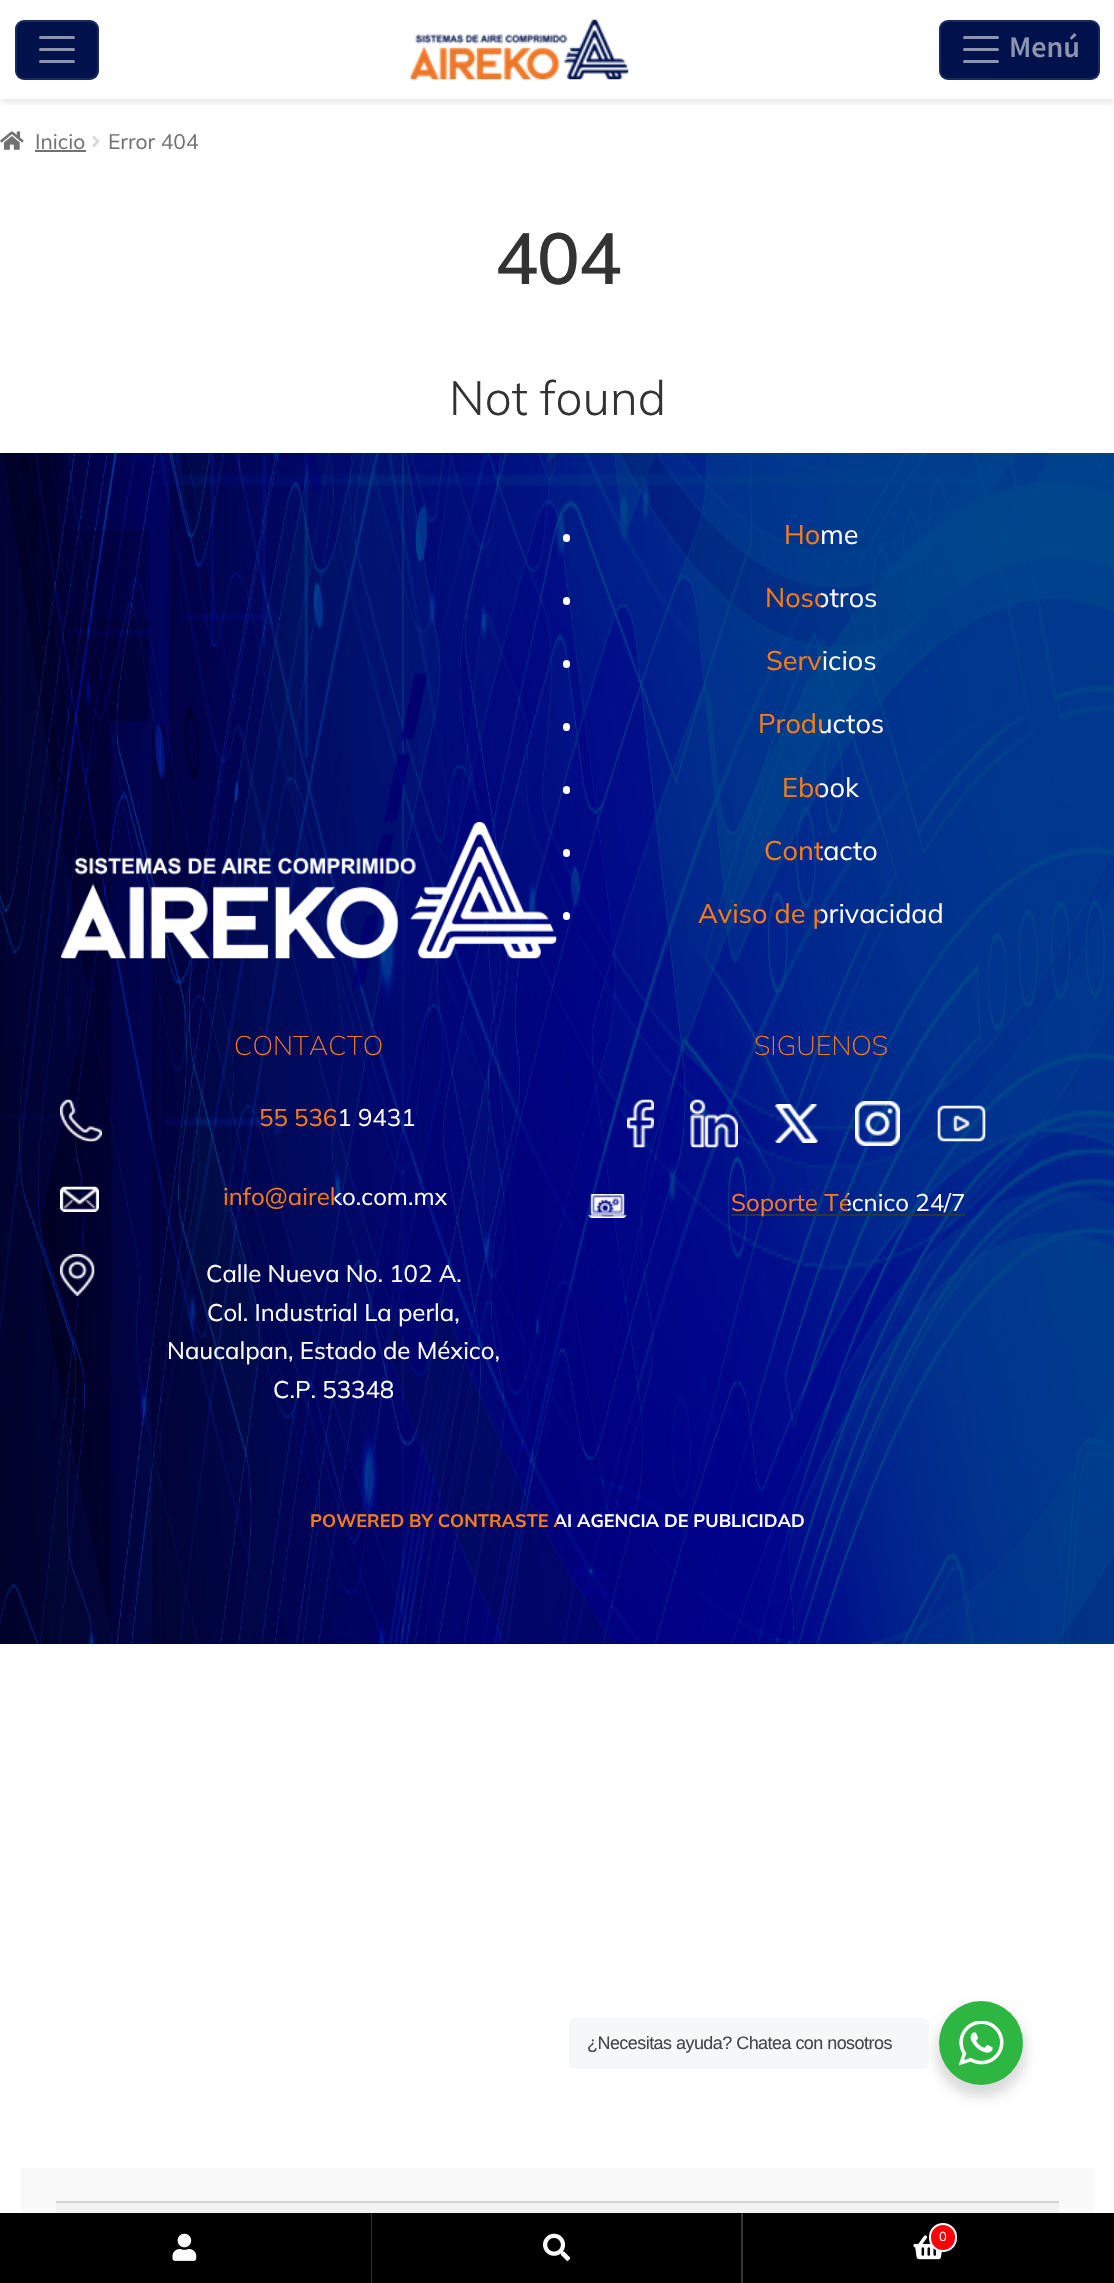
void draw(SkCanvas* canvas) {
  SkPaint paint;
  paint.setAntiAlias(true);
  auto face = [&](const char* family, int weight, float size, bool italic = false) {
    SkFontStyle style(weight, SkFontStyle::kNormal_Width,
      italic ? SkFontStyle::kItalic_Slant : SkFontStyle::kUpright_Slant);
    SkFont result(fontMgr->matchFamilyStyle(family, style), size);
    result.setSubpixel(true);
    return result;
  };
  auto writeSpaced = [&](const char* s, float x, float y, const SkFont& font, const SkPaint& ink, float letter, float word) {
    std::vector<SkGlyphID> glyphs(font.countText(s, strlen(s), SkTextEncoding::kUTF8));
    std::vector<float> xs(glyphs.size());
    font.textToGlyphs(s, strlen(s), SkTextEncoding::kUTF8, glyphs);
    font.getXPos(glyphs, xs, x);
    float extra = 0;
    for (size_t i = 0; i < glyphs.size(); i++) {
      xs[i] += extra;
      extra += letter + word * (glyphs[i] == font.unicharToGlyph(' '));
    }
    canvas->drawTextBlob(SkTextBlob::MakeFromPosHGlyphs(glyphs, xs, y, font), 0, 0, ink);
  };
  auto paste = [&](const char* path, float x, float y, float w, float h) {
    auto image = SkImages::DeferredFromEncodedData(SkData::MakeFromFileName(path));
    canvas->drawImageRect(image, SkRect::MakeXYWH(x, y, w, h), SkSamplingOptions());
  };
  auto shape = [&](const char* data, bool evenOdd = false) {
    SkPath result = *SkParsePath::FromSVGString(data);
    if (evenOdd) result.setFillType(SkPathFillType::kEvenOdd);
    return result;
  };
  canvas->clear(0xffffffff);
  canvas->save();
  canvas->clipRect(SkRect::MakeXYWH(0, 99, 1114, 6));
  paint.setColor(0x1a000000);
  paint.setMaskFilter(SkMaskFilter::MakeBlur(kNormal_SkBlurStyle, 4));
  canvas->drawRect(SkRect::MakeXYWH(0, 3, 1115, 99), paint);
  paint.setMaskFilter(nullptr);
  canvas->restore();
  paint.setColor(0xff01114c);
  canvas->drawRoundRect(SkRect::MakeXYWH(15, 20, 84, 60), 9, 9, paint);
  paint.setStroke(true);
  paint.setStrokeWidth(2);
  paint.setColor(0x1affffff);
  canvas->drawRoundRect(SkRect::MakeXYWH(16, 21, 82, 58), 8, 8, paint);
  paint.setStrokeWidth(3);
  paint.setStrokeCap(SkPaint::kRound_Cap);
  paint.setColor(0xff8d94ae);
  canvas->drawPath(shape("M40.5 37.5H73.5M40.5 49.5H73.5M40.5 61.5H73.5"), paint);
  paste("img/1.png", 410, 19, 219, 61);
  paint.setStroke(false);
  paint.setColor(0xff01114c);
  canvas->drawRoundRect(SkRect::MakeXYWH(939, 20, 161, 60), 9, 9, paint);
  paint.setStroke(true);
  paint.setStrokeWidth(2);
  paint.setStrokeCap(SkPaint::kButt_Cap);
  paint.setColor(0x1affffff);
  canvas->drawRoundRect(SkRect::MakeXYWH(940, 21, 159, 58), 8, 8, paint);
  paint.setStrokeWidth(3);
  paint.setStrokeCap(SkPaint::kRound_Cap);
  paint.setColor(0xff8d94ae);
  canvas->drawPath(shape("M964.5 37.5H997.5M964.5 49.5H997.5M964.5 61.5H997.5"), paint);
  paste("img/2.png", 0, 131, 24, 19);
  paint.setStroke(false);
  paint.setColor(0xff727272);
  canvas->drawRect(SkRect::MakeXYWH(35, 150, 51, 2), paint);
  paste("img/3.png", 92, 135, 8, 12);
  paste("img/4.png", 0, 453, 1114, 1191);
  paste("img/5.png", 60, 822, 497, 137);
  paint.setColor(0xffffffff);
  canvas->drawRoundRect(SkRect::MakeXYWH(563, 534, 7, 8), 3.5f, 3.5f, paint);
  canvas->drawRoundRect(SkRect::MakeXYWH(563, 597, 7, 8), 3.5f, 3.5f, paint);
  canvas->drawRoundRect(SkRect::MakeXYWH(563, 660, 7, 8), 3.5f, 3.5f, paint);
  canvas->drawRoundRect(SkRect::MakeXYWH(563, 723, 7, 8), 3.5f, 3.5f, paint);
  canvas->drawRoundRect(SkRect::MakeXYWH(563, 786, 7, 8), 3.5f, 3.5f, paint);
  canvas->drawRoundRect(SkRect::MakeXYWH(563, 849, 7, 8), 3.5f, 3.5f, paint);
  canvas->drawRoundRect(SkRect::MakeXYWH(563, 912, 7, 8), 3.5f, 3.5f, paint);
  paste("img/6.png", 60, 1099, 42, 43);
  paste("img/7.png", 60, 1186, 39, 26);
  paste("img/8.png", 60, 1254, 35, 42);
  paste("img/9.png", 627, 1099, 27, 49);
  paste("img/10.png", 690, 1099, 48, 49);
  paste("img/11.png", 774, 1104, 45, 39);
  paste("img/12.png", 855, 1101, 45, 45);
  paste("img/13.png", 937, 1105, 49, 37);
  paste("img/14.png", 588, 1194, 39, 24);
  {
    const struct { float x, y, w, h; SkColor color; } items[] = {
      {731, 1214, 234, 2, 0xff333333},
      {21, 2168, 1073, 45, 0xfff9f9f9},
      {56, 2203, 1003, 10, 0xfff2f2f2},
      {56, 2201, 1003, 2, 0xffd4d4d4},
      {372, 2213, 369, 70, 0xff000000},
      {741, 2213, 2, 70, 0xff333333},
    };
    for (auto [x, y, w, h, color] : items) {
      paint.setColor(color);
      canvas->drawRect(SkRect::MakeXYWH(x, y, w, h), paint);
    }
  }
  paste("img/15.png", 543, 2233, 28, 28);
  paint.setColor(0xff000000);
  canvas->drawRect(SkRect::MakeXYWH(0, 2213, 371, 70), paint);
  paint.setColor(0xff333333);
  canvas->drawRect(SkRect::MakeXYWH(371, 2213, 1, 70), paint);
  paste("img/16.png", 172, 2233, 25, 28);
  paint.setColor(0xff000000);
  canvas->drawRect(SkRect::MakeXYWH(743, 2213, 371, 70), paint);
  paste("img/17.png", 913, 2235, 29, 25);
  paint.setColor(0xfffd0008);
  canvas->drawRoundRect(SkRect::MakeXYWH(930, 2224, 26, 27), 13, 13, paint);
  paint.setStroke(true);
  paint.setStrokeWidth(2);
  paint.setStrokeCap(SkPaint::kButt_Cap);
  paint.setColor(0xffffffff);
  canvas->drawRoundRect(SkRect::MakeXYWH(930, 2224, 26, 27), 13, 13, paint);
  paint.setStroke(false);
  paint.setColor(0x24000000);
  paint.setMaskFilter(SkMaskFilter::MakeBlur(kNormal_SkBlurStyle, 6));
  canvas->drawRoundRect(SkRect::MakeXYWH(936, 2007, 90, 90), 45, 45, paint);
  paint.setMaskFilter(nullptr);
  paint.setColor(0xfff5f7f9);
  canvas->drawRoundRect(SkRect::MakeXYWH(569, 2018, 360, 51), 6, 6, paint);
  paint.setColor(0xff2db742);
  canvas->drawCircle(981, 2043, 42, paint);
  paste("img/18.png", 959, 2021, 45, 45);
  auto f0 = face("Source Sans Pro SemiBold", 600, 30);
  paint.setColor(0xff8d94ae);
  canvas->drawString("Menú", 1009, 57, f0, paint);
  auto f1 = face("Mulish", 400, 21);
  paint.setColor(0xff727272);
  canvas->drawString("Inicio", 35, 149, f1, paint);
  canvas->drawString("Error 404", 108, 149, f1, paint);
  auto f2 = face("Mulish", 600, 72);
  paint.setColor(0xff333333);
  writeSpaced("404", 495, 284, f2, paint, -1.5f, 0);
  auto f3 = face("Mulish", 300, 48);
  canvas->drawString("Not found", 449, 415, f3, paint);
  auto f4 = face("Mulish", 400, 27);
  {
    const SkColor colors[] = {0xfff77c18, 0xfff77c18, 0xffffffff};
    const float stops[] = {0, 0.5f, 0.5f};
    const SkPoint ends[] = {{784, 534}, {858, 534}};
    paint.setShader(SkGradientShader::MakeLinear(ends, colors, stops, 3, SkTileMode::kClamp));
    paint.setAlpha(255);
  }
  canvas->drawString("Home", 784, 544, f4, paint);
  {
    const SkColor colors[] = {0xfff77c18, 0xfff77c18, 0xffffffff};
    const float stops[] = {0, 0.5f, 0.5f};
    const SkPoint ends[] = {{765, 597}, {877, 597}};
    paint.setShader(SkGradientShader::MakeLinear(ends, colors, stops, 3, SkTileMode::kClamp));
    paint.setAlpha(255);
  }
  canvas->drawString("Nosotros", 765, 607, f4, paint);
  {
    const SkColor colors[] = {0xfff77c18, 0xfff77c18, 0xffffffff};
    const float stops[] = {0, 0.5f, 0.5f};
    const SkPoint ends[] = {{766, 661}, {876, 661}};
    paint.setShader(SkGradientShader::MakeLinear(ends, colors, stops, 3, SkTileMode::kClamp));
    paint.setAlpha(255);
  }
  canvas->drawString("Servicios", 766, 670, f4, paint);
  {
    const SkColor colors[] = {0xfff77c18, 0xfff77c18, 0xffffffff};
    const float stops[] = {0, 0.5f, 0.5f};
    const SkPoint ends[] = {{758, 724}, {884, 724}};
    paint.setShader(SkGradientShader::MakeLinear(ends, colors, stops, 3, SkTileMode::kClamp));
    paint.setAlpha(255);
  }
  canvas->drawString("Productos", 758, 733, f4, paint);
  {
    const SkColor colors[] = {0xfff77c18, 0xfff77c18, 0xffffffff};
    const float stops[] = {0, 0.5f, 0.5f};
    const SkPoint ends[] = {{782, 787}, {859, 787}};
    paint.setShader(SkGradientShader::MakeLinear(ends, colors, stops, 3, SkTileMode::kClamp));
    paint.setAlpha(255);
  }
  canvas->drawString("Ebook", 782, 797, f4, paint);
  {
    const SkColor colors[] = {0xfff77c18, 0xfff77c18, 0xffffffff};
    const float stops[] = {0, 0.5f, 0.5f};
    const SkPoint ends[] = {{764, 850}, {878, 850}};
    paint.setShader(SkGradientShader::MakeLinear(ends, colors, stops, 3, SkTileMode::kClamp));
    paint.setAlpha(255);
  }
  canvas->drawString("Contacto", 764, 860, f4, paint);
  {
    const SkColor colors[] = {0xfff77c18, 0xfff77c18, 0xffffffff};
    const float stops[] = {0, 0.5f, 0.5f};
    const SkPoint ends[] = {{698, 913}, {944, 913}};
    paint.setShader(SkGradientShader::MakeLinear(ends, colors, stops, 3, SkTileMode::kClamp));
    paint.setAlpha(255);
  }
  canvas->drawString("Aviso de privacidad", 698, 923, f4, paint);
  auto f5 = face("Mulish", 200, 27);
  paint.setShader(nullptr);
  paint.setColor(0xfff77c18);
  canvas->drawString("CONTACTO", 234, 1055, f5, paint);
  auto f6 = face("Mulish", 400, 24);
  {
    const SkColor colors[] = {0xfff77c18, 0xfff77c18, 0xffffffff};
    const float stops[] = {0, 0.5f, 0.5f};
    const SkPoint ends[] = {{259, 1118}, {415, 1118}};
    paint.setShader(SkGradientShader::MakeLinear(ends, colors, stops, 3, SkTileMode::kClamp));
    paint.setAlpha(255);
  }
  canvas->drawString("55 5361 9431", 259, 1126, f6, paint);
  {
    const SkColor colors[] = {0xfff77c18, 0xfff77c18, 0xffffffff};
    const float stops[] = {0, 0.5f, 0.5f};
    const SkPoint ends[] = {{223, 1198}, {448, 1198}};
    paint.setShader(SkGradientShader::MakeLinear(ends, colors, stops, 3, SkTileMode::kClamp));
    paint.setAlpha(255);
  }
  canvas->drawString("info@aireko.com.mx", 223, 1205, f6, paint);
  paint.setShader(nullptr);
  paint.setColor(0xffffffff);
  {
    const struct { const char* s; float x, y; } items[] = {
      {"Calle Nueva No. 102 A.", 206, 1282},
      {"Col. Industrial La perla,", 207, 1321},
      {"Naucalpan, Estado de México,", 167, 1359},
      {"C.P. 53348", 273, 1398},
    };
    for (auto [s, x, y] : items) {
      canvas->drawString(s, x, y, f6, paint);
    }
  }
  paint.setColor(0xfff77c18);
  canvas->drawString("SIGUENOS", 754, 1055, f5, paint);
  {
    const SkColor colors[] = {0xfff77c18, 0xfff77c18, 0xffffffff};
    const float stops[] = {0, 0.5f, 0.5f};
    const SkPoint ends[] = {{731, 1204}, {965, 1204}};
    paint.setShader(SkGradientShader::MakeLinear(ends, colors, stops, 3, SkTileMode::kClamp));
    paint.setAlpha(255);
  }
  canvas->drawString("Soporte Técnico 24/7", 731, 1211, f6, paint);
  auto f7 = face("Mulish", 700, 18);
  {
    const SkColor colors[] = {0xfff77c18, 0xfff77c18, 0xffffffff};
    const float stops[] = {0, 0.5f, 0.5f};
    const SkPoint ends[] = {{310, 1521}, {805, 1521}};
    paint.setShader(SkGradientShader::MakeLinear(ends, colors, stops, 3, SkTileMode::kClamp));
    paint.setAlpha(255);
  }
  canvas->drawString("POWERED BY CONTRASTE AI AGENCIA DE PUBLICIDAD", 310, 1527, f7, paint);
  auto f8 = face("Mulish", 400, 13);
  paint.setShader(nullptr);
  paint.setColor(0xffffffff);
  canvas->drawString("0", 939, 2241, f8, paint);
  auto f9 = face("Liberation Sans", 400, 18);
  paint.setColor(0xff43474e);
  writeSpaced("¿Necesitas ayuda? Chatea con nosotros", 587, 2049, f9, paint, -0.55f, 0);
}
